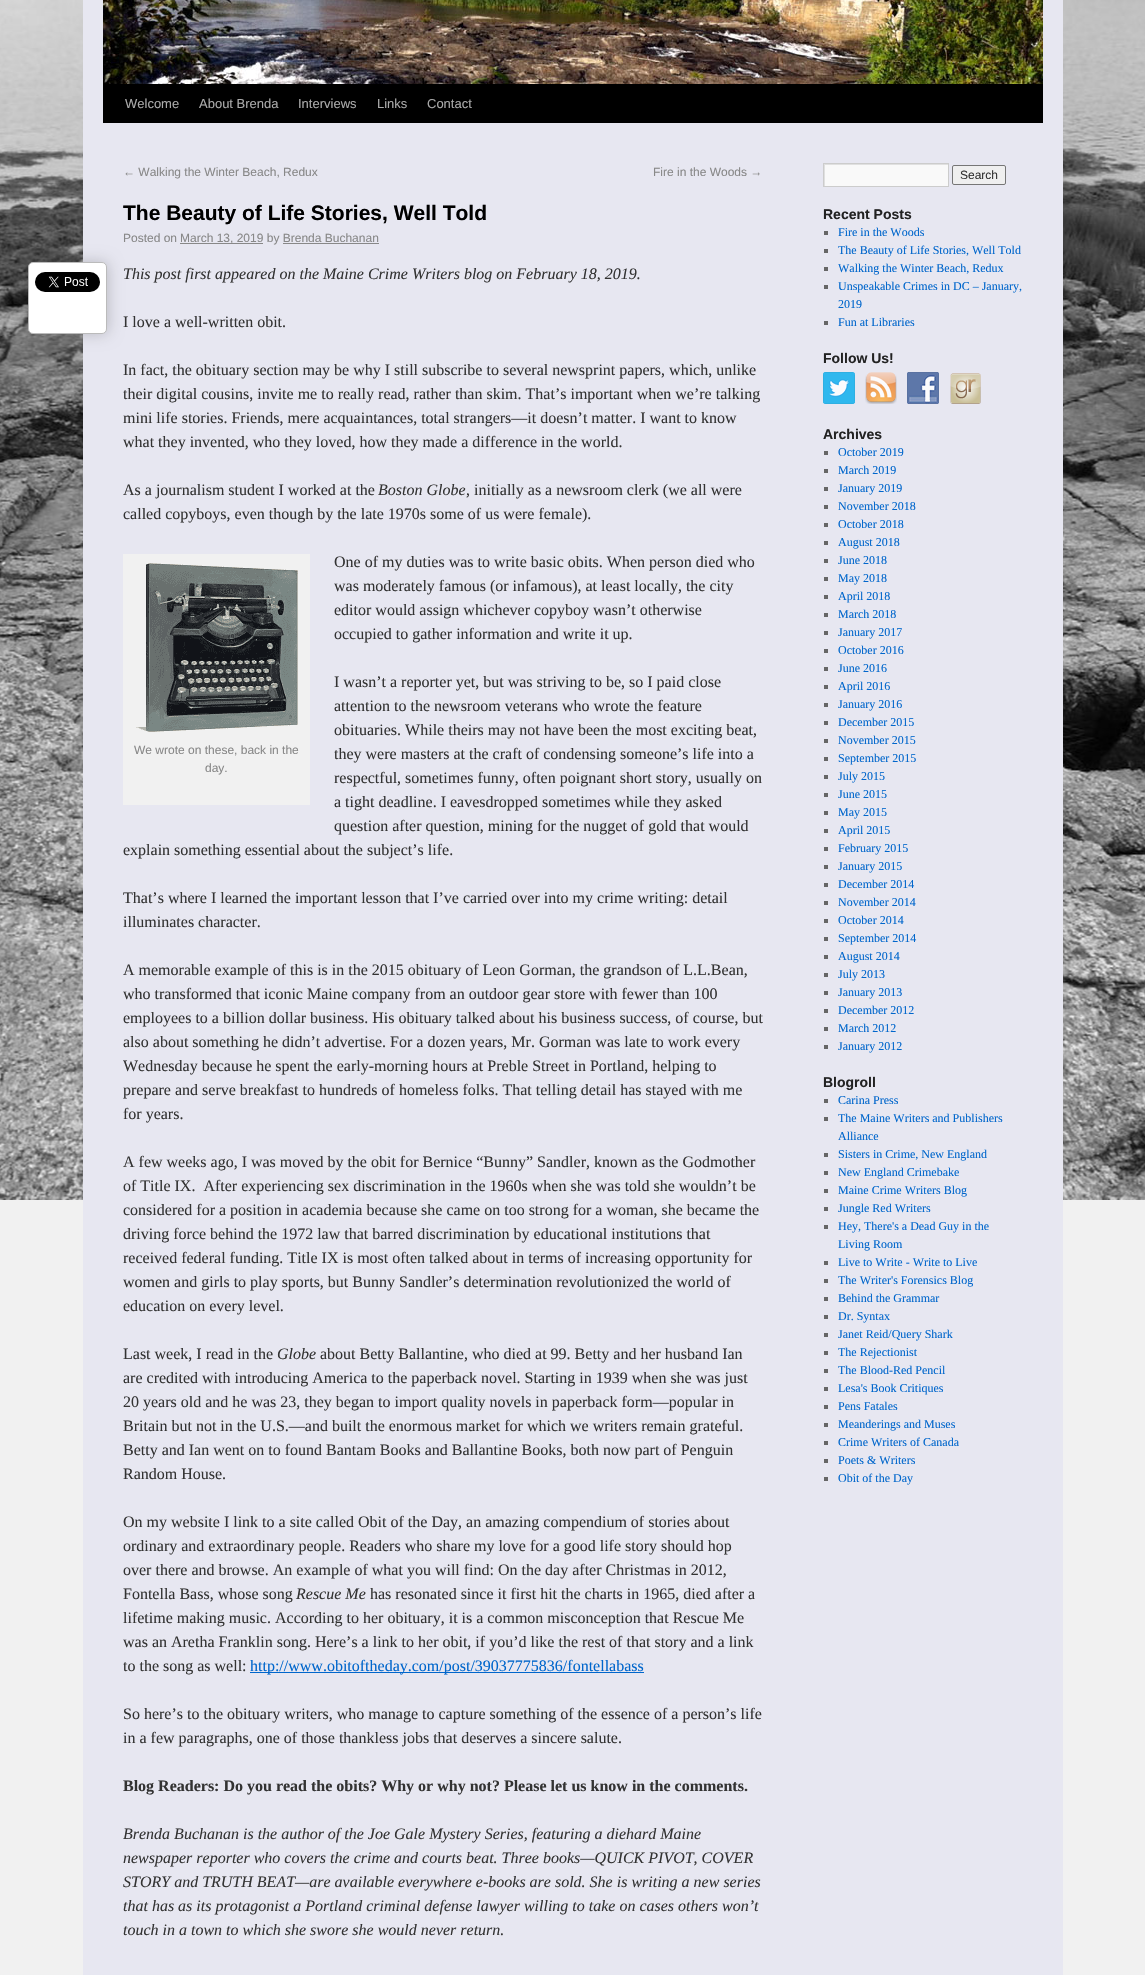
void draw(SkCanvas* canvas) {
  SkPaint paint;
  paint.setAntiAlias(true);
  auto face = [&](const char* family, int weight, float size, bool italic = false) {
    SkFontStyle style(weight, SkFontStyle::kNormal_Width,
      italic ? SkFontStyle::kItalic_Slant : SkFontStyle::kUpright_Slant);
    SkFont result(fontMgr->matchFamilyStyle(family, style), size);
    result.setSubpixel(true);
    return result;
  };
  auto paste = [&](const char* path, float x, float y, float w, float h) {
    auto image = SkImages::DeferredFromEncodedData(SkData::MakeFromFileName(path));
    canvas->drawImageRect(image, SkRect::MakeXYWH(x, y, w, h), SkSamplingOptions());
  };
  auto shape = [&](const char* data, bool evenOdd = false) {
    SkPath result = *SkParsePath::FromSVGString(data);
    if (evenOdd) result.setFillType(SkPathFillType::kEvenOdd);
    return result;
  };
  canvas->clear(0xfff1f1f1);
  paste("img/1.png", 0, 0, 1145, 1200);
  paint.setColor(0xffe7e7f1);
  canvas->drawRect(SkRect::MakeXYWH(83, 0, 980, 1975), paint);
  paint.setColor(0x33000000);
  paint.setMaskFilter(SkMaskFilter::MakeBlur(kNormal_SkBlurStyle, 7.5f));
  canvas->drawRoundRect(SkRect::MakeXYWH(29, 262, 79, 72), 5, 5, paint);
  paint.setMaskFilter(nullptr);
  paint.setColor(0xffffffff);
  canvas->drawRoundRect(SkRect::MakeXYWH(28.5f, 262.5f, 78, 71), 4.5f, 4.5f, paint);
  paint.setStroke(true);
  paint.setStrokeWidth(1);
  paint.setColor(0xffbbbbbb);
  canvas->drawRoundRect(SkRect::MakeXYWH(28.5f, 262.5f, 78, 71), 4.5f, 4.5f, paint);
  paste("img/2.png", 35, 272, 65, 20);
  paint.setStroke(false);
  paint.setColor(0xff000000);
  canvas->drawRect(SkRect::MakeXYWH(103, 84, 940, 39), paint);
  paste("img/3.png", 103, 0, 940, 84);
  {
    const struct { float x, y, w, h; SkColor color; } items[] = {
      {180, 243, 83, 1, 0xff888888},
      {283, 243, 96, 1, 0xff888888},
      {123, 554, 187, 251, 0xfff1f1f1},
    };
    for (auto [x, y, w, h, color] : items) {
      paint.setColor(color);
      canvas->drawRect(SkRect::MakeXYWH(x, y, w, h), paint);
    }
  }
  paste("img/4.png", 136, 563, 162, 169);
  paint.setColor(0xff0066cc);
  canvas->drawRect(SkRect::MakeXYWH(250, 1672, 394, 1), paint);
  paint.setColor(0xfff9f9f9);
  canvas->drawRect(SkRect::MakeXYWH(825, 165, 123, 21), paint);
  canvas->save();
  canvas->clipRect(SkRect::MakeXYWH(824, 164, 124, 22));
  paint.setColor(0xffe0e0e0);
  canvas->drawPath(shape("M725 65H1047V285H725ZM825 165H949V187H825Z", true), paint);
  canvas->restore();
  paint.setStroke(true);
  paint.setColor(0xffcccccc);
  canvas->drawRect(SkRect::MakeXYWH(823.5f, 163.5f, 125, 23), paint);
  paint.setStroke(false);
  paint.setColor(0xffefefef);
  canvas->drawRoundRect(SkRect::MakeXYWH(952.5f, 165.5f, 53, 19), 1.5f, 1.5f, paint);
  paint.setStroke(true);
  paint.setColor(0xff767676);
  canvas->drawRoundRect(SkRect::MakeXYWH(952.5f, 165.5f, 53, 19), 1.5f, 1.5f, paint);
  paint.setStroke(false);
  {
    const struct { float x, y, w, h; SkColor color; } items[] = {
      {824, 231, 4, 4, 0xff666666},
      {824, 249, 4, 4, 0xff666666},
      {824, 267, 4, 4, 0xff666666},
      {824, 285, 4, 4, 0xff666666},
      {824, 321, 4, 4, 0xff666666},
    };
    for (auto [x, y, w, h, color] : items) {
      paint.setColor(color);
      canvas->drawRect(SkRect::MakeXYWH(x, y, w, h), paint);
    }
  }
  paste("img/5.png", 823, 372, 32, 32);
  paste("img/6.png", 865, 372, 32, 32);
  paste("img/7.png", 907, 372, 32, 32);
  paste("img/8.png", 950, 373, 31, 31);
  {
    const struct { float x, y, w, h; SkColor color; } items[] = {
      {824, 451, 4, 4, 0xff666666},
      {824, 469, 4, 4, 0xff666666},
      {824, 487, 4, 4, 0xff666666},
      {824, 505, 4, 4, 0xff666666},
      {824, 523, 4, 4, 0xff666666},
      {824, 541, 4, 4, 0xff666666},
      {824, 559, 4, 4, 0xff666666},
      {824, 577, 4, 4, 0xff666666},
      {824, 595, 4, 4, 0xff666666},
      {824, 613, 4, 4, 0xff666666},
      {824, 631, 4, 4, 0xff666666},
      {824, 649, 4, 4, 0xff666666},
      {824, 667, 4, 4, 0xff666666},
      {824, 685, 4, 4, 0xff666666},
      {824, 703, 4, 4, 0xff666666},
      {824, 721, 4, 4, 0xff666666},
      {824, 739, 4, 4, 0xff666666},
      {824, 757, 4, 4, 0xff666666},
      {824, 775, 4, 4, 0xff666666},
      {824, 793, 4, 4, 0xff666666},
      {824, 811, 4, 4, 0xff666666},
      {824, 829, 4, 4, 0xff666666},
      {824, 847, 4, 4, 0xff666666},
      {824, 865, 4, 4, 0xff666666},
      {824, 883, 4, 4, 0xff666666},
      {824, 901, 4, 4, 0xff666666},
      {824, 919, 4, 4, 0xff666666},
      {824, 937, 4, 4, 0xff666666},
      {824, 955, 4, 4, 0xff666666},
      {824, 973, 4, 4, 0xff666666},
      {824, 991, 4, 4, 0xff666666},
      {824, 1009, 4, 4, 0xff666666},
      {824, 1027, 4, 4, 0xff666666},
      {824, 1045, 4, 4, 0xff666666},
      {824, 1099, 4, 4, 0xff666666},
      {824, 1117, 4, 4, 0xff666666},
      {824, 1153, 4, 4, 0xff666666},
      {824, 1171, 4, 4, 0xff666666},
      {824, 1189, 4, 4, 0xff666666},
      {824, 1207, 4, 4, 0xff666666},
      {824, 1225, 4, 4, 0xff666666},
      {824, 1261, 4, 4, 0xff666666},
      {824, 1279, 4, 4, 0xff666666},
      {824, 1297, 4, 4, 0xff666666},
      {824, 1315, 4, 4, 0xff666666},
      {824, 1333, 4, 4, 0xff666666},
      {824, 1351, 4, 4, 0xff666666},
      {824, 1369, 4, 4, 0xff666666},
      {824, 1387, 4, 4, 0xff666666},
      {824, 1405, 4, 4, 0xff666666},
      {824, 1423, 4, 4, 0xff666666},
      {824, 1441, 4, 4, 0xff666666},
      {824, 1459, 4, 4, 0xff666666},
      {824, 1477, 4, 4, 0xff666666},
    };
    for (auto [x, y, w, h, color] : items) {
      paint.setColor(color);
      canvas->drawRect(SkRect::MakeXYWH(x, y, w, h), paint);
    }
  }
  auto f0 = face("Liberation Sans", 400, 13);
  paint.setColor(0xffaaaaaa);
  {
    const struct { const char* s; float x, y; } items[] = {
      {"Welcome", 125, 108},
      {"About Brenda", 199, 108},
      {"Interviews", 298, 108},
      {"Links", 377, 108},
      {"Contact", 427, 108},
    };
    for (auto [s, x, y] : items) {
      canvas->drawString(s, x, y, f0, paint);
    }
  }
  auto f1 = face("Liberation Sans", 400, 12);
  paint.setColor(0xff888888);
  canvas->drawString("← Walking the Winter Beach, Redux", 123, 176, f1, paint);
  canvas->drawString("Fire in the Woods →", 653, 176, f1, paint);
  auto f2 = face("Liberation Sans", 700, 21);
  paint.setColor(0xff000000);
  canvas->drawString("The Beauty of Life Stories, Well Told", 123, 220, f2, paint);
  paint.setColor(0xff888888);
  canvas->drawString("Posted on", 123, 242, f1, paint);
  canvas->drawString("March 13, 2019 by Brenda Buchanan", 180, 242, f1, paint);
  auto f3 = face("Liberation Serif", 400, 16, true);
  paint.setColor(0xff333333);
  canvas->drawString("This post first appeared on the Maine Crime Writers blog on February 18, 2019.", 123, 279, f3, paint);
  auto f4 = face("Liberation Serif", 400, 16);
  {
    const struct { const char* s; float x, y; } items[] = {
      {"I love a well-written obit.", 123, 327},
      {"In fact, the obituary section may be why I still subscribe to several newsprint papers, which, unlike", 123, 375},
      {"their digital cousins, invite me to really read, rather than skim. That’s important when we’re talking", 123, 399},
      {"mini life stories. Friends, mere acquaintances, total strangers—it doesn’t matter. I want to know", 123, 423},
      {"what they invented, who they loved, how they made a difference in the world.", 123, 447},
      {"As a journalism student I worked at the", 123, 495},
    };
    for (auto [s, x, y] : items) {
      canvas->drawString(s, x, y, f4, paint);
    }
  }
  canvas->drawString("Boston Globe", 378, 495, f3, paint);
  {
    const struct { const char* s; float x, y; } items[] = {
      {", initially as a newsroom clerk (we all were", 466, 495},
      {"called copyboys, even though by the late 1970s some of us were female).", 123, 519},
      {"One of my duties was to write basic obits. When person died who", 334, 567},
      {"was moderately famous (or infamous), at least locally, the city", 334, 591},
      {"editor would assign whichever copyboy wasn’t otherwise", 334, 615},
      {"occupied to gather information and write it up.", 334, 639},
      {"I wasn’t a reporter yet, but was striving to be, so I paid close", 334, 687},
      {"attention to the newsroom veterans who wrote the feature", 334, 711},
      {"obituaries. While theirs may not have been the most exciting beat,", 334, 735},
      {"they were masters at the craft of condensing someone’s life into a", 334, 759},
      {"respectful, sometimes funny, often poignant short story, usually on", 334, 783},
      {"a tight deadline. I eavesdropped sometimes while they asked", 334, 807},
      {"question after question, mining for the nugget of gold that would", 334, 831},
      {"explain something essential about the subject’s life.", 123, 855},
    };
    for (auto [s, x, y] : items) {
      canvas->drawString(s, x, y, f4, paint);
    }
  }
  paint.setColor(0xff888888);
  canvas->drawString("We wrote on these, back in the", 134, 754, f1, paint);
  canvas->drawString("day.", 205, 772, f1, paint);
  paint.setColor(0xff333333);
  {
    const struct { const char* s; float x, y; } items[] = {
      {"That’s where I learned the important lesson that I’ve carried over into my crime writing: detail", 123, 903},
      {"illuminates character.", 123, 927},
      {"A memorable example of this is in the 2015 obituary of Leon Gorman, the grandson of L.L.Bean,", 123, 975},
      {"who transformed that iconic Maine company from an outdoor gear store with fewer than 100", 123, 999},
      {"employees to a billion dollar business. His obituary talked about his business success, of course, but", 123, 1023},
      {"also about something he didn’t advertise. For a dozen years, Mr. Gorman was late to work every", 123, 1047},
      {"Wednesday because he spent the early-morning hours at Preble Street in Portland, helping to", 123, 1071},
      {"prepare and serve breakfast to hundreds of homeless folks. That telling detail has stayed with me", 123, 1095},
      {"for years.", 123, 1119},
      {"A few weeks ago, I was moved by the obit for Bernice “Bunny” Sandler, known as the Godmother", 123, 1167},
      {"of Title IX.  After experiencing sex discrimination in the 1960s when she was told she wouldn’t be", 123, 1191},
      {"considered for a position in academia because she came on too strong for a woman, she became the", 123, 1215},
      {"driving force behind the 1972 law that barred discrimination by educational institutions that", 123, 1239},
      {"received federal funding. Title IX is most often talked about in terms of increasing opportunity for", 123, 1263},
      {"women and girls to play sports, but Bunny Sandler’s determination revolutionized the world of", 123, 1287},
      {"education on every level.", 123, 1311},
      {"Last week, I read in the", 123, 1359},
    };
    for (auto [s, x, y] : items) {
      canvas->drawString(s, x, y, f4, paint);
    }
  }
  canvas->drawString("Globe", 277, 1359, f3, paint);
  {
    const struct { const char* s; float x, y; } items[] = {
      {"about Betty Ballantine, who died at 99. Betty and her husband Ian", 320, 1359},
      {"are credited with introducing America to the paperback novel. Starting in 1939 when she was just", 123, 1383},
      {"20 years old and he was 23, they began to import quality novels in paperback form—popular in", 123, 1407},
      {"Britain but not in the U.S.—and built the enormous market for which we writers remain grateful.", 123, 1431},
      {"Betty and Ian went on to found Bantam Books and Ballantine Books, both now part of Penguin", 123, 1455},
      {"Random House.", 123, 1479},
      {"On my website I link to a site called Obit of the Day, an amazing compendium of stories about", 123, 1527},
      {"ordinary and extraordinary people. Readers who share my love for a good life story should hop", 123, 1551},
      {"over there and browse. An example of what you will find: On the day after Christmas in 2012,", 123, 1575},
      {"Fontella Bass, whose song", 123, 1599},
    };
    for (auto [s, x, y] : items) {
      canvas->drawString(s, x, y, f4, paint);
    }
  }
  canvas->drawString("Rescue Me", 296, 1599, f3, paint);
  {
    const struct { const char* s; float x, y; } items[] = {
      {"has resonated since it first hit the charts in 1965, died after a", 370, 1599},
      {"lifetime making music. According to her obituary, it is a common misconception that Rescue Me", 123, 1623},
      {"was an Aretha Franklin song. Here’s a link to her obit, if you’d like the rest of that story and a link", 123, 1647},
      {"to the song as well:", 123, 1671},
    };
    for (auto [s, x, y] : items) {
      canvas->drawString(s, x, y, f4, paint);
    }
  }
  paint.setColor(0xff0066cc);
  canvas->drawString("http://www.obitoftheday.com/post/39037775836/fontellabass", 250, 1671, f4, paint);
  paint.setColor(0xff333333);
  canvas->drawString("So here’s to the obituary writers, who manage to capture something of the essence of a person’s life", 123, 1719, f4, paint);
  canvas->drawString("in a few paragraphs, one of those thankless jobs that deserves a sincere salute.", 123, 1743, f4, paint);
  auto f5 = face("Liberation Serif", 700, 16);
  canvas->drawString("Blog Readers: Do you read the obits? Why or why not? Please let us know in the comments.", 123, 1791, f5, paint);
  {
    const struct { const char* s; float x, y; } items[] = {
      {"Brenda Buchanan is the author of the Joe Gale Mystery Series, featuring a diehard Maine", 123, 1839},
      {"newspaper reporter who covers the crime and courts beat. Three books—QUICK PIVOT, COVER", 123, 1863},
      {"STORY and TRUTH BEAT—are available everywhere e-books are sold. She is writing a new series", 123, 1887},
      {"that has as its protagonist a Portland criminal defense lawyer willing to take on cases others won’t", 123, 1911},
      {"touch in a town to which she swore she would never return.", 123, 1935},
    };
    for (auto [s, x, y] : items) {
      canvas->drawString(s, x, y, f3, paint);
    }
  }
  canvas->drawString("Search", 960, 179, f1, paint);
  auto f6 = face("Liberation Sans", 700, 14);
  paint.setColor(0xff222222);
  canvas->drawString("Recent Posts", 823, 219, f6, paint);
  auto f7 = face("Liberation Serif", 400, 12);
  paint.setColor(0xff0066cc);
  {
    const struct { const char* s; float x, y; } items[] = {
      {"Fire in the Woods", 838, 236},
      {"The Beauty of Life Stories, Well Told", 838, 254},
      {"Walking the Winter Beach, Redux", 838, 272},
      {"Unspeakable Crimes in DC – January,", 838, 290},
      {"2019", 838, 308},
      {"Fun at Libraries", 838, 326},
    };
    for (auto [s, x, y] : items) {
      canvas->drawString(s, x, y, f7, paint);
    }
  }
  paint.setColor(0xff222222);
  canvas->drawString("Follow Us!", 823, 363, f6, paint);
  canvas->drawString("Archives", 823, 439, f6, paint);
  paint.setColor(0xff0066cc);
  {
    const struct { const char* s; float x, y; } items[] = {
      {"October 2019", 838, 456},
      {"March 2019", 838, 474},
      {"January 2019", 838, 492},
      {"November 2018", 838, 510},
      {"October 2018", 838, 528},
      {"August 2018", 838, 546},
      {"June 2018", 838, 564},
      {"May 2018", 838, 582},
      {"April 2018", 838, 600},
      {"March 2018", 838, 618},
      {"January 2017", 838, 636},
      {"October 2016", 838, 654},
      {"June 2016", 838, 672},
      {"April 2016", 838, 690},
      {"January 2016", 838, 708},
      {"December 2015", 838, 726},
      {"November 2015", 838, 744},
      {"September 2015", 838, 762},
      {"July 2015", 838, 780},
      {"June 2015", 838, 798},
      {"May 2015", 838, 816},
      {"April 2015", 838, 834},
      {"February 2015", 838, 852},
      {"January 2015", 838, 870},
      {"December 2014", 838, 888},
      {"November 2014", 838, 906},
      {"October 2014", 838, 924},
      {"September 2014", 838, 942},
      {"August 2014", 838, 960},
      {"July 2013", 838, 978},
      {"January 2013", 838, 996},
      {"December 2012", 838, 1014},
      {"March 2012", 838, 1032},
      {"January 2012", 838, 1050},
    };
    for (auto [s, x, y] : items) {
      canvas->drawString(s, x, y, f7, paint);
    }
  }
  paint.setColor(0xff222222);
  canvas->drawString("Blogroll", 823, 1087, f6, paint);
  paint.setColor(0xff0066cc);
  {
    const struct { const char* s; float x, y; } items[] = {
      {"Carina Press", 838, 1104},
      {"The Maine Writers and Publishers", 838, 1122},
      {"Alliance", 838, 1140},
      {"Sisters in Crime, New England", 838, 1158},
      {"New England Crimebake", 838, 1176},
      {"Maine Crime Writers Blog", 838, 1194},
      {"Jungle Red Writers", 838, 1212},
      {"Hey, There's a Dead Guy in the", 838, 1230},
      {"Living Room", 838, 1248},
      {"Live to Write - Write to Live", 838, 1266},
      {"The Writer's Forensics Blog", 838, 1284},
      {"Behind the Grammar", 838, 1302},
      {"Dr. Syntax", 838, 1320},
      {"Janet Reid/Query Shark", 838, 1338},
      {"The Rejectionist", 838, 1356},
      {"The Blood-Red Pencil", 838, 1374},
      {"Lesa's Book Critiques", 838, 1392},
      {"Pens Fatales", 838, 1410},
      {"Meanderings and Muses", 838, 1428},
      {"Crime Writers of Canada", 838, 1446},
      {"Poets & Writers", 838, 1464},
      {"Obit of the Day", 838, 1482},
    };
    for (auto [s, x, y] : items) {
      canvas->drawString(s, x, y, f7, paint);
    }
  }
}
